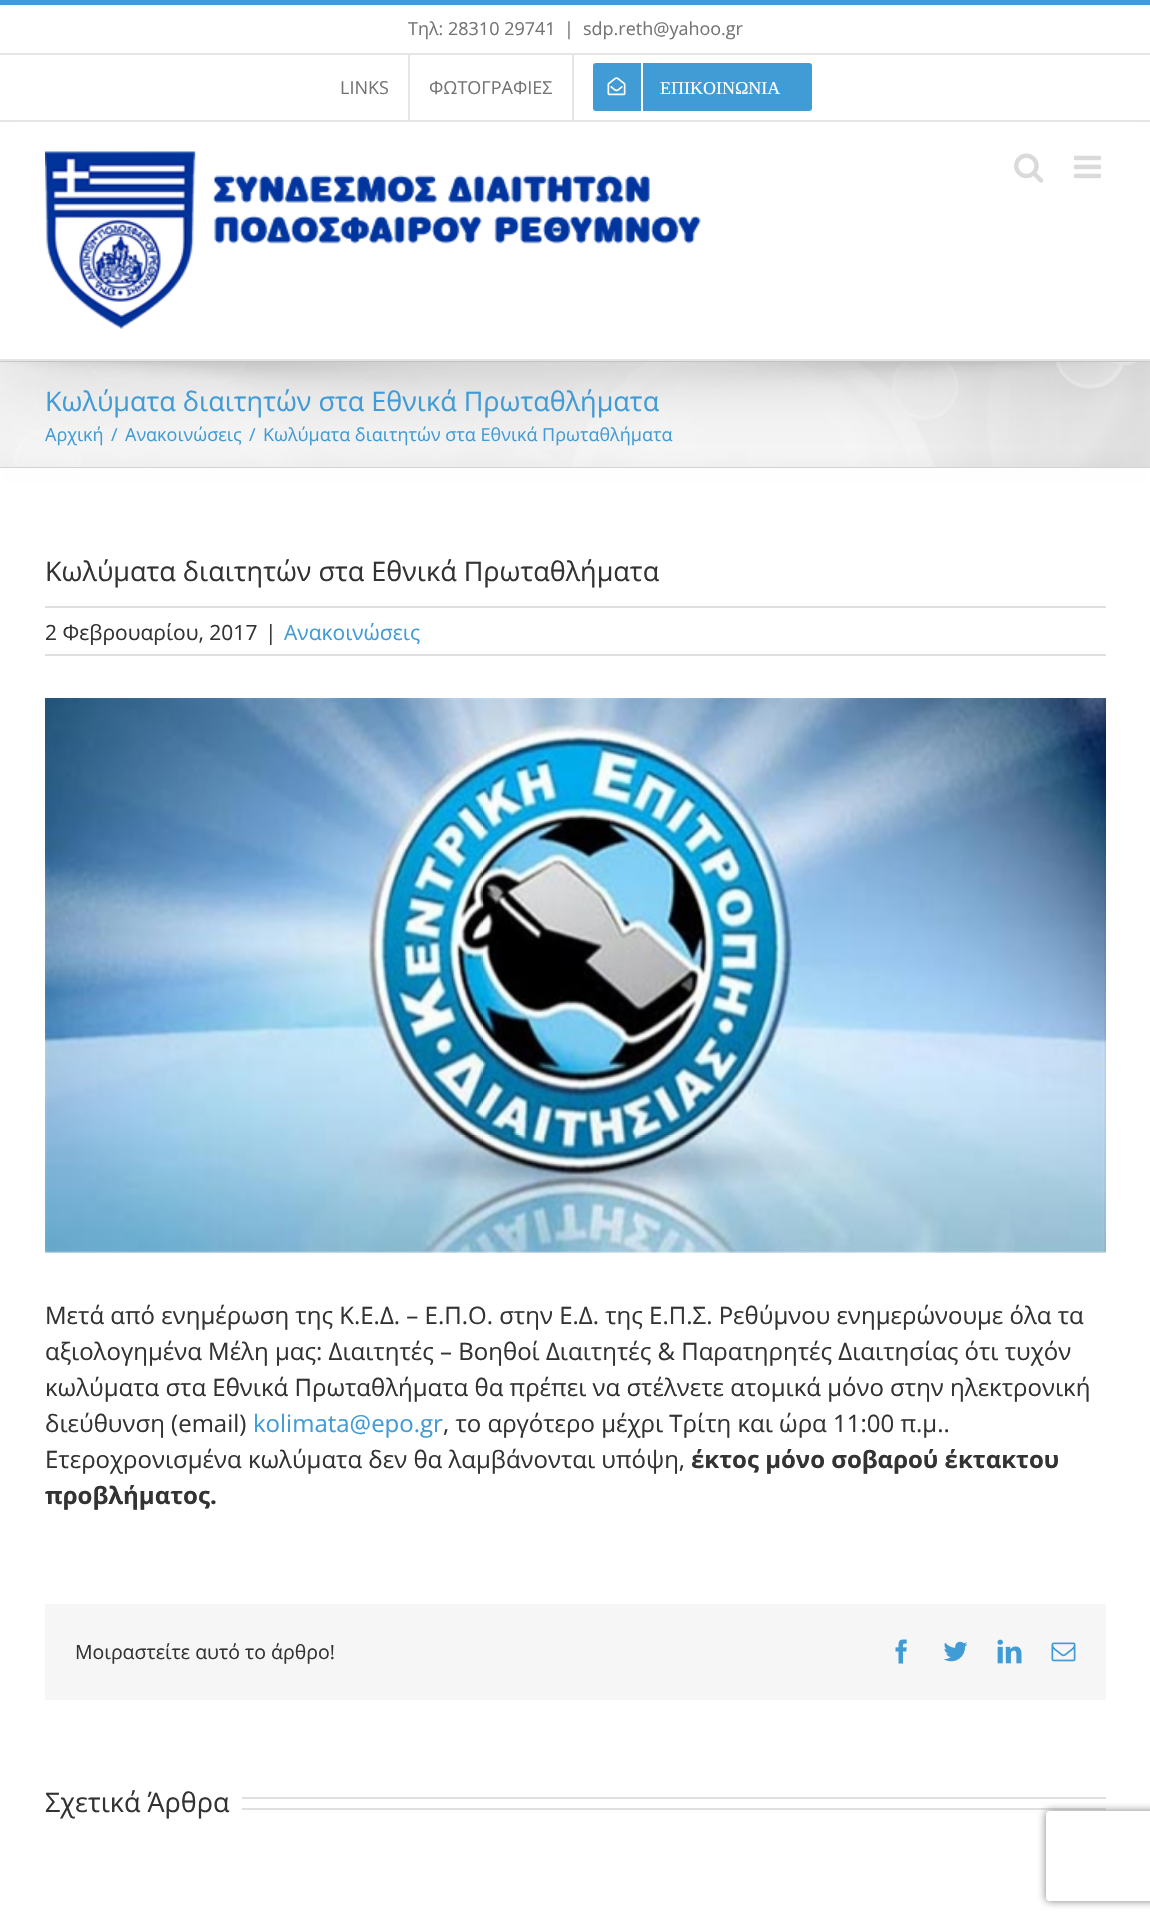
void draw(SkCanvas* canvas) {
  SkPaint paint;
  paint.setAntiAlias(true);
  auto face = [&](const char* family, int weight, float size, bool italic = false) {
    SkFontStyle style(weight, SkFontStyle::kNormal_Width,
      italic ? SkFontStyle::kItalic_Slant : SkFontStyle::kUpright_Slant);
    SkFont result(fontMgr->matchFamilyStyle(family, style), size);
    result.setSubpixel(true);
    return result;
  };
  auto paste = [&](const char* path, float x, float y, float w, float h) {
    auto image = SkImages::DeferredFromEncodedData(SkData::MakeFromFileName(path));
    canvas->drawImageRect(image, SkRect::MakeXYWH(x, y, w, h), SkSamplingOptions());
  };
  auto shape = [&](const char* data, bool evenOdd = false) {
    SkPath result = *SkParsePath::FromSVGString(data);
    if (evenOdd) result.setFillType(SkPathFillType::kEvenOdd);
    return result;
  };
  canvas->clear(0xfff6f6f6);
  paste("img/5.png", 0, 362, 1150, 105);
  {
    const struct { float x, y, w, h; SkColor color; } items[] = {
      {0, 361, 1150, 1, 0xffd2d3d4},
      {0, 467, 1150, 1, 0xffd2d3d4},
      {0, 468, 1150, 1453, 0xffffffff},
    };
    for (auto [x, y, w, h, color] : items) {
      paint.setColor(color);
      canvas->drawRect(SkRect::MakeXYWH(x, y, w, h), paint);
    }
  }
  paint.setColor(0x24000000);
  paint.setMaskFilter(SkMaskFilter::MakeBlur(kNormal_SkBlurStyle, 37.5f));
  canvas->drawRect(SkRect::MakeXYWH(3, 18, 1145, 354), paint);
  paint.setMaskFilter(nullptr);
  {
    const struct { float x, y, w, h; SkColor color; } items[] = {
      {0, 5, 1150, 115, 0xffffffff},
      {0, 0, 1150, 5, 0xff419bd5},
      {10, 120, 1131, 2, 0xffe5e5e5},
      {0, 53, 1150, 2, 0xffe5e5e5},
      {408, 54, 2, 66, 0xffe5e5e5},
      {572, 54, 2, 66, 0xffe5e5e5},
    };
    for (auto [x, y, w, h, color] : items) {
      paint.setColor(color);
      canvas->drawRect(SkRect::MakeXYWH(x, y, w, h), paint);
    }
  }
  paint.setColor(0xff419bd5);
  canvas->drawRoundRect(SkRect::MakeXYWH(593, 63, 219, 48), 3, 3, paint);
  paint.setColor(0xffffffff);
  canvas->drawRect(SkRect::MakeXYWH(641, 63, 2, 48), paint);
  paste("img/1.png", 607, 77, 19, 19);
  canvas->drawRect(SkRect::MakeXYWH(0, 122, 1150, 237), paint);
  paint.setColor(0xffe5e5e5);
  canvas->drawRect(SkRect::MakeXYWH(0, 359, 1150, 2), paint);
  paste("img/2.png", 45, 151, 656, 178);
  paste("img/3.png", 1014, 153, 30, 30);
  paste("img/4.png", 1074, 155, 27, 24);
  paint.setColor(0xffe0dede);
  canvas->drawRect(SkRect::MakeXYWH(45, 606, 1061, 2), paint);
  canvas->drawRect(SkRect::MakeXYWH(45, 654, 1061, 2), paint);
  paste("img/6.png", 45, 698, 1061, 555);
  paint.setColor(0xfff6f6f6);
  canvas->drawRect(SkRect::MakeXYWH(45, 1604, 1061, 96), paint);
  paste("img/7.png", 895, 1639, 12, 25);
  paste("img/8.png", 943, 1641, 25, 21);
  paste("img/9.png", 997, 1639, 25, 25);
  paste("img/10.png", 1051, 1642, 25, 20);
  paint.setColor(0xffe0dede);
  canvas->drawRect(SkRect::MakeXYWH(242, 1797, 864, 2), paint);
  canvas->drawRect(SkRect::MakeXYWH(242, 1808, 864, 2), paint);
  canvas->save();
  canvas->clipPath(shape("M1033 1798H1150V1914H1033ZM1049 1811H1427C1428.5 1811 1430 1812.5 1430 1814V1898C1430 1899.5 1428.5 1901 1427 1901H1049C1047.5 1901 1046 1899.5 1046 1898V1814C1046 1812.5 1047.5 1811 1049 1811Z", true), true);
  paint.setColor(0xff808080);
  paint.setMaskFilter(SkMaskFilter::MakeBlur(kNormal_SkBlurStyle, 4));
  canvas->drawRoundRect(SkRect::MakeXYWH(1046, 1811, 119, 90), 3, 3, paint);
  paint.setMaskFilter(nullptr);
  canvas->restore();
  auto f0 = face("Open Sans", 400, 18);
  paint.setColor(0xff747474);
  {
    const struct { const char* s; float x, y; } items[] = {
      {"Τηλ: 28310 29741", 408, 35},
      {"|", 564, 35},
      {"sdp.reth@yahoo.gr", 583, 35},
      {"LINKS", 340, 94},
      {"ΦΩΤΟΓΡΑΦΙΕΣ", 429, 94},
    };
    for (auto [s, x, y] : items) {
      canvas->drawString(s, x, y, f0, paint);
    }
  }
  auto f1 = face("Liberation Serif", 400, 18);
  paint.setColor(0xffffffff);
  canvas->drawString("ΕΠΙΚΟΙΝΩΝΙΑ", 660, 94, f1, paint);
  auto f2 = face("Open Sans", 400, 27);
  paint.setColor(0xff419bd5);
  canvas->drawString("Κωλύματα διαιτητών στα Εθνικά Πρωταθλήματα", 45, 411, f2, paint);
  {
    const struct { const char* s; float x, y; } items[] = {
      {"Αρχική", 45, 441},
      {"/", 111, 441},
      {"Ανακοινώσεις", 125, 441},
      {"/", 249, 441},
      {"Κωλύματα διαιτητών στα Εθνικά Πρωταθλήματα", 263, 441},
    };
    for (auto [s, x, y] : items) {
      canvas->drawString(s, x, y, f0, paint);
    }
  }
  paint.setColor(0xff333333);
  canvas->drawString("Κωλύματα διαιτητών στα Εθνικά Πρωταθλήματα", 45, 581, f2, paint);
  auto f3 = face("Open Sans", 400, 21);
  canvas->drawString("2 Φεβρουαρίου, 2017", 45, 640, f3, paint);
  canvas->drawString("|", 265, 640, f3, paint);
  paint.setColor(0xff419bd5);
  canvas->drawString("Ανακοινώσεις", 284, 640, f3, paint);
  auto f4 = face("Open Sans", 400, 24);
  paint.setColor(0xff333333);
  {
    const struct { const char* s; float x, y; } items[] = {
      {"Μετά από ενημέρωση της Κ.Ε.Δ. – Ε.Π.Ο. στην Ε.Δ. της Ε.Π.Σ. Ρεθύμνου ενημερώνουμε όλα τα", 45, 1324},
      {"αξιολογημένα Μέλη μας: Διαιτητές – Βοηθοί Διαιτητές & Παρατηρητές Διαιτησίας ότι τυχόν", 45, 1360},
      {"κωλύματα στα Εθνικά Πρωταθλήματα θα πρέπει να στέλνετε ατομικά μόνο στην ηλεκτρονική", 45, 1396},
      {"διεύθυνση (email)", 45, 1432},
    };
    for (auto [s, x, y] : items) {
      canvas->drawString(s, x, y, f4, paint);
    }
  }
  paint.setColor(0xff419bd5);
  canvas->drawString("kolimata@epo.gr", 253, 1432, f4, paint);
  paint.setColor(0xff333333);
  canvas->drawString(", το αργότερο μέχρι Τρίτη και ώρα 11:00 π.μ..", 443, 1432, f4, paint);
  canvas->drawString("Ετεροχρονισμένα κωλύματα δεν θα λαμβάνονται υπόψη,", 45, 1468, f4, paint);
  auto f5 = face("Open Sans", 700, 24);
  canvas->drawString("έκτος μόνο σοβαρού έκτακτου", 691, 1468, f5, paint);
  canvas->drawString("προβλήματος.", 45, 1504, f5, paint);
  auto f6 = face("Open Sans", 400, 19.5f);
  canvas->drawString("Μοιραστείτε αυτό το άρθρο!", 75, 1659, f6, paint);
  canvas->drawString("Σχετικά Άρθρα", 45, 1812, f2, paint);
}
